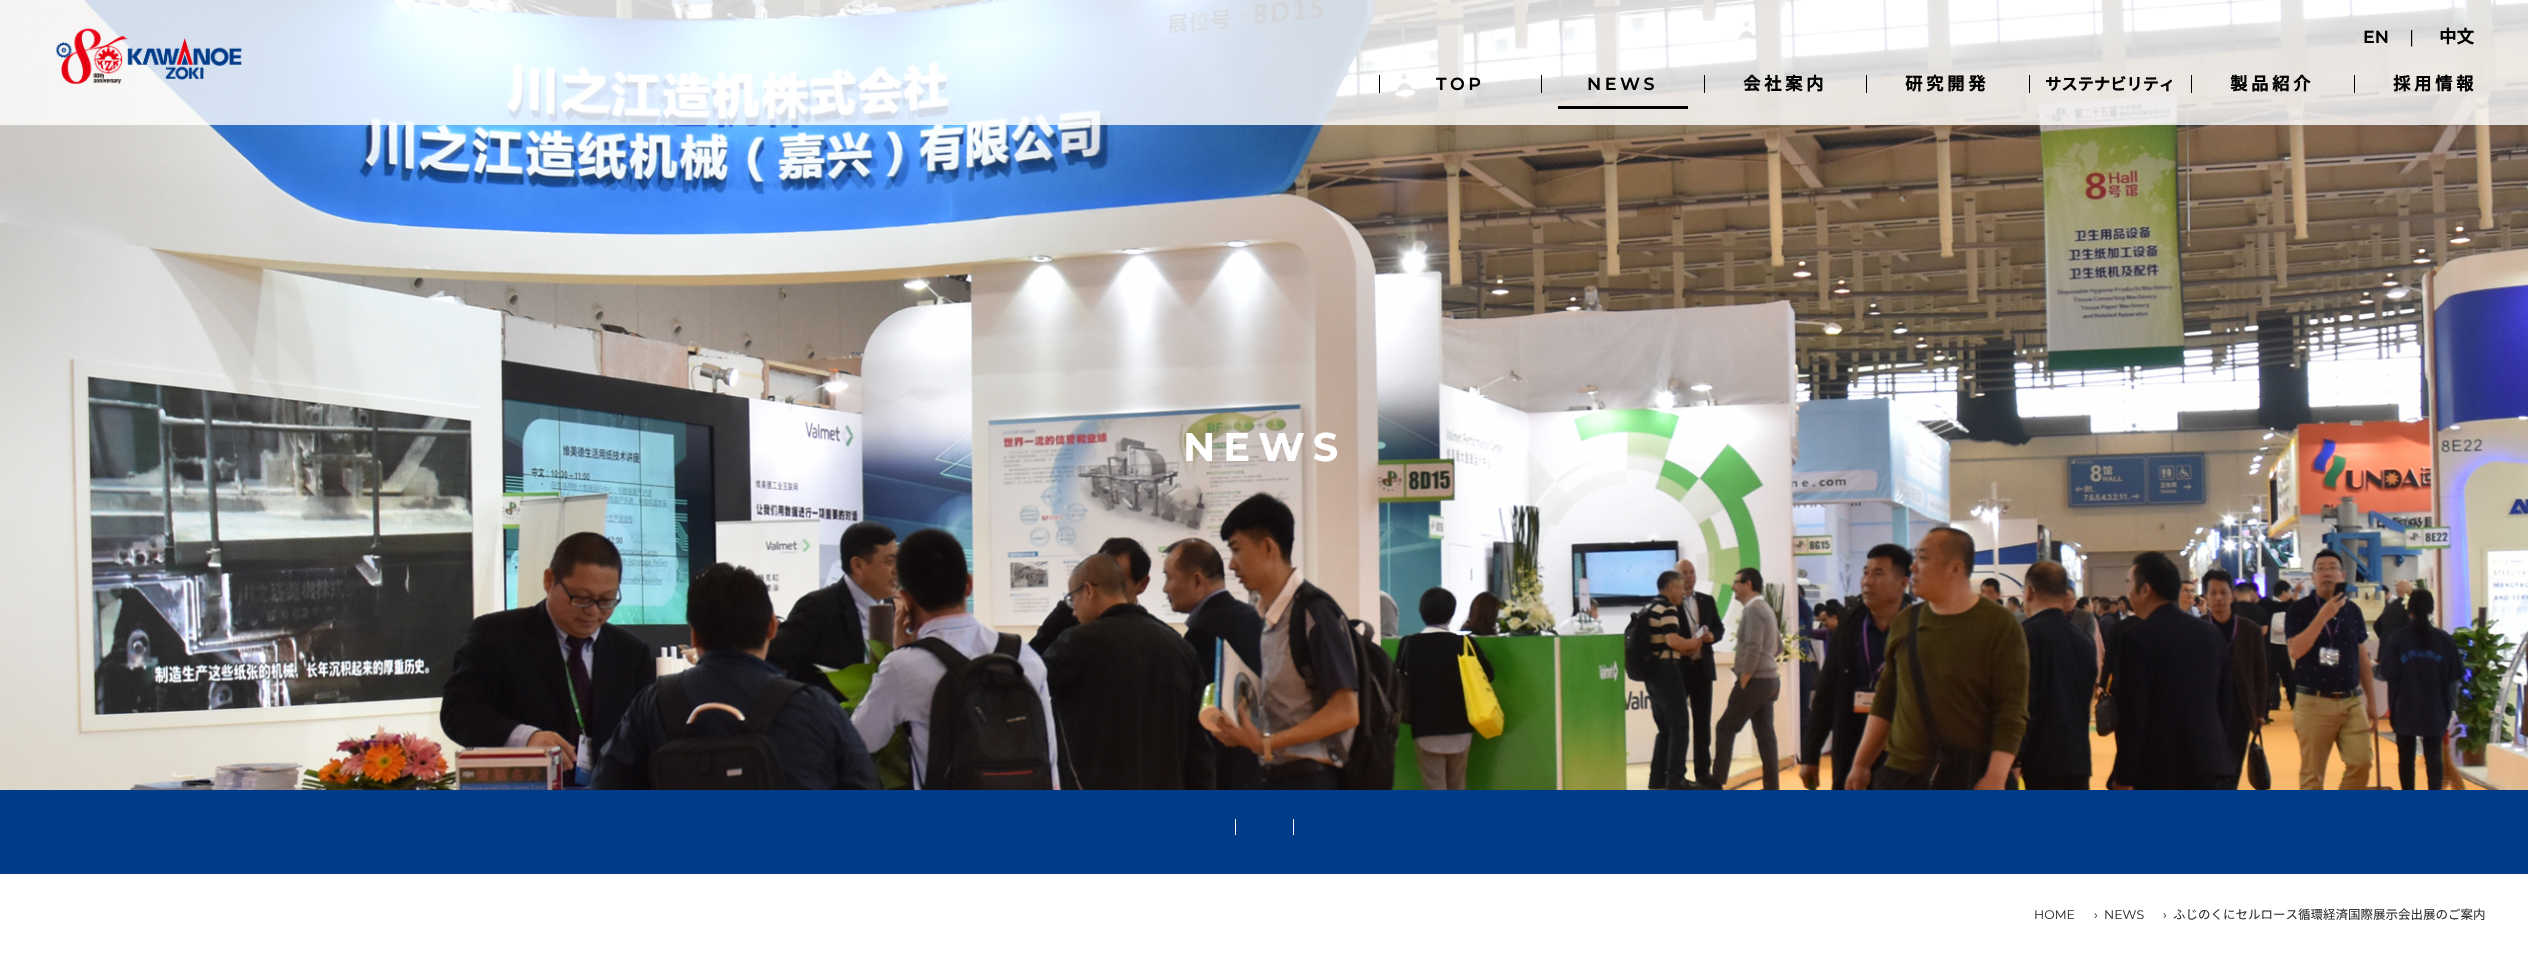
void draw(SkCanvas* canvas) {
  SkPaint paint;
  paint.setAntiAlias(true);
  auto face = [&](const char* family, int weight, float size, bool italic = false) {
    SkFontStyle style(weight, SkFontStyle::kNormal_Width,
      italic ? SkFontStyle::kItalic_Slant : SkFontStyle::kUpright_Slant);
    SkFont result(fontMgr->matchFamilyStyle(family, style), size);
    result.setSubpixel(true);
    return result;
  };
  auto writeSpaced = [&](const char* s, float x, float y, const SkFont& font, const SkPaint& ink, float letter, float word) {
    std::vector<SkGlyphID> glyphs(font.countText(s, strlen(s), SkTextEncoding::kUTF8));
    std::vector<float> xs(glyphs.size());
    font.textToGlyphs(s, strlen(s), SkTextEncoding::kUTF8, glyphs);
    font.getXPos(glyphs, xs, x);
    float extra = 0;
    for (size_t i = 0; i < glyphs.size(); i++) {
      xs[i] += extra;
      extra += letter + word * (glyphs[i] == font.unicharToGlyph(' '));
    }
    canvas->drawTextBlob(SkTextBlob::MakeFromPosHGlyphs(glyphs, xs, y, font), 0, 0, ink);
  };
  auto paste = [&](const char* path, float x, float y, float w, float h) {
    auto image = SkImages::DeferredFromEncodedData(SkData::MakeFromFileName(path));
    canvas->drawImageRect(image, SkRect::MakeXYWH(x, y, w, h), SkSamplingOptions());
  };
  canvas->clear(0xffffffff);
  paste("img/1.png", 0, 0, 2528, 790);
  paint.setColor(0xccffffff);
  canvas->drawRect(SkRect::MakeXYWH(0, 0, 2528, 125), paint);
  paste("img/2.png", 56, 28, 186, 56);
  {
    const struct { float x, y, w, h; SkColor color; } items[] = {
      {1379, 75, 1, 18, 0xff000000},
      {1541, 75, 1, 18, 0xff000000},
      {1558, 106, 130, 3, 0xff000000},
      {1704, 75, 1, 18, 0xff000000},
      {1866, 75, 1, 18, 0xff000000},
      {2029, 75, 1, 18, 0xff000000},
      {2191, 75, 1, 18, 0xff000000},
      {2354, 75, 1, 18, 0xff000000},
      {0, 790, 2528, 84, 0xff003b88},
      {1293, 819, 1, 16, 0xffffffff},
      {1235, 819, 1, 16, 0xffffffff},
    };
    for (auto [x, y, w, h, color] : items) {
      paint.setColor(color);
      canvas->drawRect(SkRect::MakeXYWH(x, y, w, h), paint);
    }
  }
  auto f0 = face("Montserrat", 600, 17.5f);
  paint.setColor(0xff000000);
  canvas->drawString("EN", 2363, 43, f0, paint);
  auto f1 = face("Montserrat", 400, 17.5f);
  canvas->drawString("|", 2409, 43, f1, paint);
  auto f2 = face("Noto Sans JP", 700, 17.5f);
  canvas->drawString("中文", 2439, 43, f2, paint);
  auto f3 = face("Montserrat", 700, 40);
  paint.setColor(0xffffffff);
  writeSpaced("NEWS", 1183, 461, f3, paint, 8, 0);
  paint.setColor(0xff000000);
  writeSpaced("TOP", 1436, 90, f0, paint, 3.5f, 0);
  writeSpaced("NEWS", 1587, 90, f0, paint, 3.5f, 0);
  writeSpaced("会社案内", 1743, 90, f2, paint, 3.5f, 0);
  writeSpaced("研究開発", 1905, 90, f2, paint, 3.5f, 0);
  auto f4 = face("Noto Sans JP", 700, 16.25f);
  canvas->drawString("サステナビリティ", 2045, 90, f4, paint);
  writeSpaced("製品紹介", 2230, 90, f2, paint, 3.5f, 0);
  writeSpaced("採用情報", 2393, 90, f2, paint, 3.5f, 0);
  auto f5 = face("Montserrat", 400, 12.5f);
  paint.setColor(0xff333333);
  {
    const struct { const char* s; float x, y; } items[] = {
      {"HOME", 2034, 919},
      {"›", 2094, 919},
      {"NEWS", 2104, 919},
      {"›", 2163, 919},
    };
    for (auto [s, x, y] : items) {
      canvas->drawString(s, x, y, f5, paint);
    }
  }
  auto f6 = face("Noto Sans JP", 400, 12.5f);
  canvas->drawString("ふじのくにセルロース循環経済国際展示会出展のご案内", 2173, 919, f6, paint);
}
